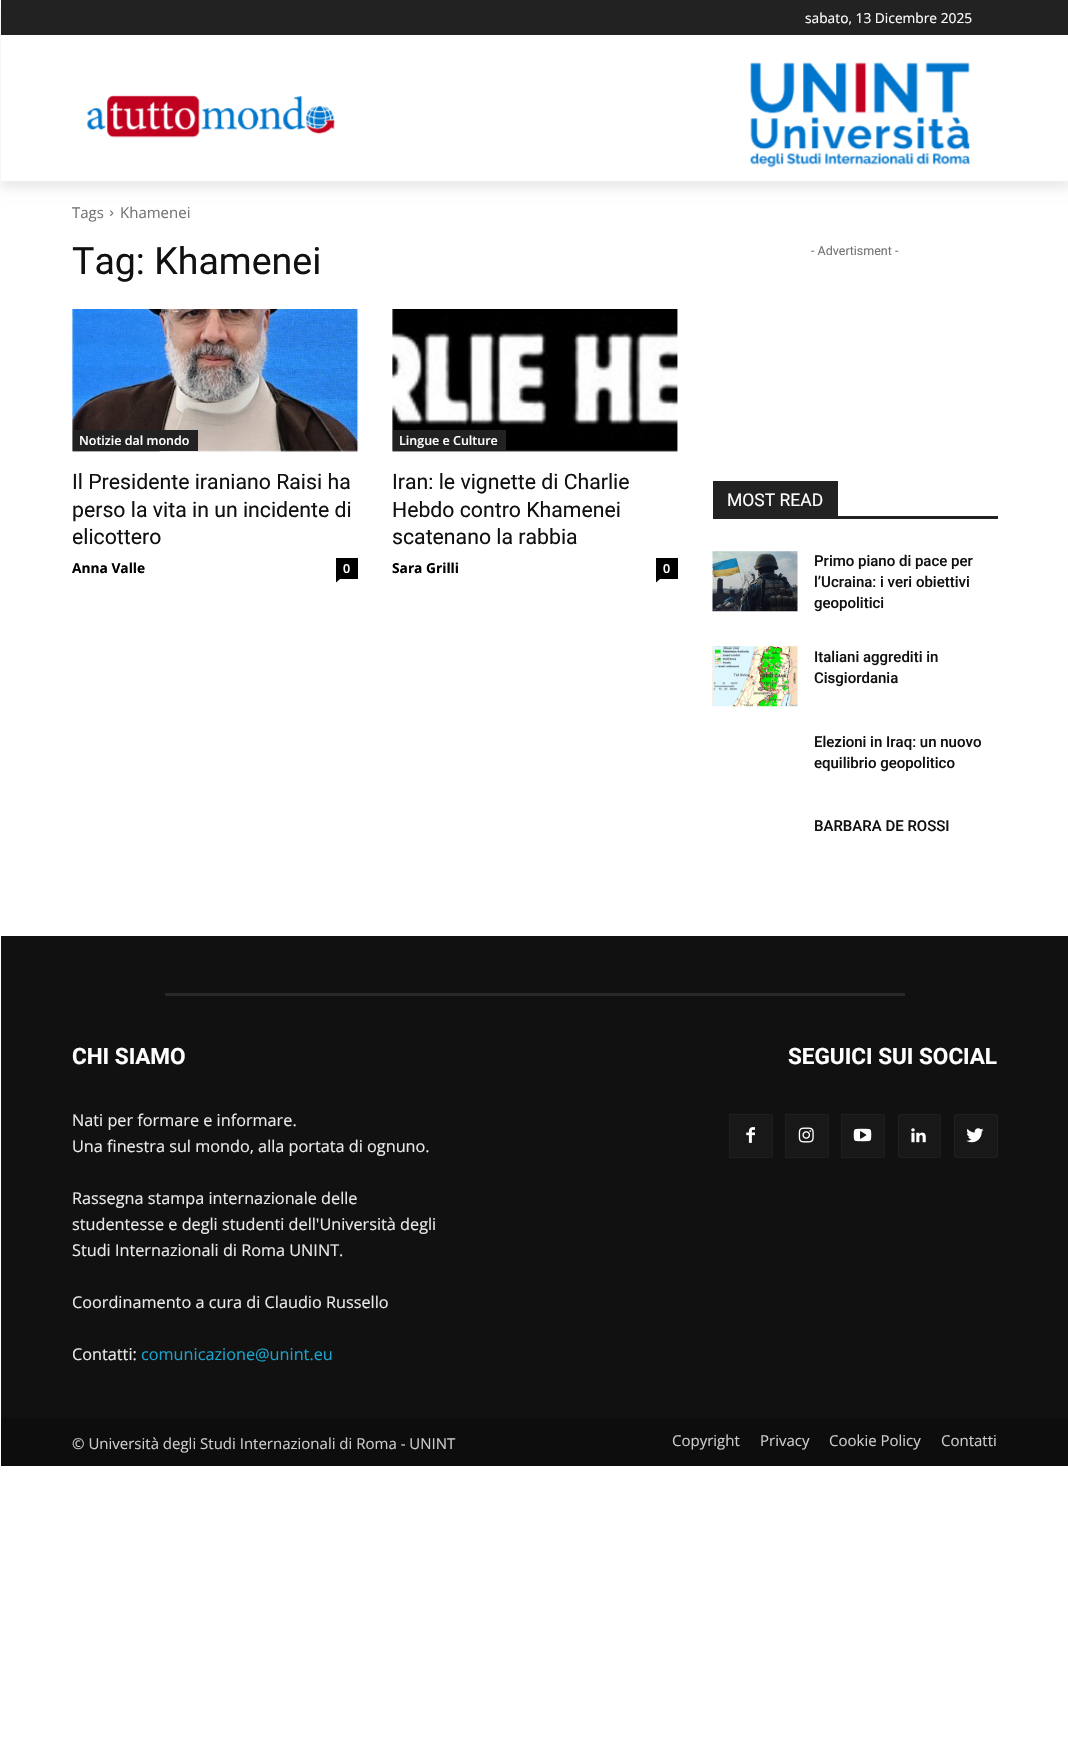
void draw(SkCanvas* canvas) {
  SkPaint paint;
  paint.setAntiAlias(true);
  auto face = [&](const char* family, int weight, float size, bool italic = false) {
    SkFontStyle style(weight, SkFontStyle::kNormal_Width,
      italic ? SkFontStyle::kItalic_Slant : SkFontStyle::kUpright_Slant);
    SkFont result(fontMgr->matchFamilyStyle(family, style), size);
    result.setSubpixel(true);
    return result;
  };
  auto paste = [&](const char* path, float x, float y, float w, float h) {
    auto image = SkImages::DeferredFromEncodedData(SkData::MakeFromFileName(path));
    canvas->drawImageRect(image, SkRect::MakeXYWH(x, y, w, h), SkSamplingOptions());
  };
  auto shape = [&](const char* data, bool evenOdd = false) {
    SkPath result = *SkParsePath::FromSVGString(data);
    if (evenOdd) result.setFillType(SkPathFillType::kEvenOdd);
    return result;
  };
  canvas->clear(0xffffffff);
  paint.setColor(0xff222222);
  canvas->drawRect(SkRect::MakeXYWH(1, 0, 1067, 35), paint);
  paste("img/1.png", 87, 95, 248, 43);
  paste("img/2.png", 750, 62, 221, 106);
  canvas->save();
  canvas->clipPath(shape("M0 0H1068V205H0ZM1 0H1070V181H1Z", true), true);
  paint.setColor(0x14000000);
  paint.setMaskFilter(SkMaskFilter::MakeBlur(kNormal_SkBlurStyle, 5));
  canvas->drawRect(SkRect::MakeXYWH(1, 8, 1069, 181), paint);
  paint.setMaskFilter(nullptr);
  canvas->restore();
  paste("img/3.png", 110, 210, 4, 7);
  paste("img/4.png", 72, 309, 287, 143);
  paint.setColor(0xff222222);
  canvas->drawRect(SkRect::MakeXYWH(73, 430, 125, 21), paint);
  paint.setColor(0xff000000);
  canvas->drawRect(SkRect::MakeXYWH(336, 558, 22, 21), paint);
  canvas->drawPath(shape("M336 579H340L336 582.5Z"), paint);
  paste("img/5.png", 392, 309, 286, 143);
  paint.setColor(0xff222222);
  canvas->drawRect(SkRect::MakeXYWH(393, 430, 113, 21), paint);
  paint.setColor(0xff000000);
  canvas->drawRect(SkRect::MakeXYWH(656, 558, 22, 21), paint);
  canvas->drawPath(shape("M656 579H660L656 582.5Z"), paint);
  paint.setColor(0xff222222);
  canvas->drawRect(SkRect::MakeXYWH(713, 516, 285, 3), paint);
  canvas->drawRect(SkRect::MakeXYWH(713, 481, 125, 35), paint);
  paste("img/6.png", 712, 551, 86, 61);
  paste("img/7.png", 712, 646, 86, 61);
  paint.setColor(0xff111111);
  canvas->drawRect(SkRect::MakeXYWH(1, 936, 1067, 482), paint);
  paint.setColor(0xff292929);
  canvas->drawRect(SkRect::MakeXYWH(165, 993, 740, 3), paint);
  paint.setColor(0xff181818);
  canvas->drawRect(SkRect::MakeXYWH(729.5f, 1114.5f, 43, 43), paint);
  paint.setStroke(true);
  paint.setStrokeWidth(1);
  paint.setColor(0xff1f1f1f);
  canvas->drawRect(SkRect::MakeXYWH(729.5f, 1114.5f, 43, 43), paint);
  paste("img/8.png", 746, 1127, 9, 16);
  paint.setStroke(false);
  paint.setColor(0xff181818);
  canvas->drawRect(SkRect::MakeXYWH(785.5f, 1114.5f, 43, 43), paint);
  paint.setStroke(true);
  paint.setColor(0xff1f1f1f);
  canvas->drawRect(SkRect::MakeXYWH(785.5f, 1114.5f, 43, 43), paint);
  paste("img/9.png", 798, 1127, 16, 16);
  paint.setStroke(false);
  paint.setColor(0xff181818);
  canvas->drawRect(SkRect::MakeXYWH(841.5f, 1114.5f, 43, 43), paint);
  paint.setStroke(true);
  paint.setColor(0xff1f1f1f);
  canvas->drawRect(SkRect::MakeXYWH(841.5f, 1114.5f, 43, 43), paint);
  paste("img/10.png", 853, 1128, 19, 14);
  paint.setStroke(false);
  paint.setColor(0xff181818);
  canvas->drawRect(SkRect::MakeXYWH(898.5f, 1114.5f, 42, 43), paint);
  paint.setStroke(true);
  paint.setColor(0xff1f1f1f);
  canvas->drawRect(SkRect::MakeXYWH(898.5f, 1114.5f, 42, 43), paint);
  paste("img/11.png", 911, 1128, 15, 15);
  paint.setStroke(false);
  paint.setColor(0xff181818);
  canvas->drawRect(SkRect::MakeXYWH(954.5f, 1114.5f, 43, 43), paint);
  paint.setStroke(true);
  paint.setColor(0xff1f1f1f);
  canvas->drawRect(SkRect::MakeXYWH(954.5f, 1114.5f, 43, 43), paint);
  paste("img/12.png", 966, 1128, 18, 15);
  paint.setStroke(false);
  paint.setColor(0xff0d0d0d);
  canvas->drawRect(SkRect::MakeXYWH(1, 1418, 1067, 48), paint);
  auto f0 = face("Open Sans", 400, 13.75f);
  paint.setColor(0xffffffff);
  canvas->drawString("sabato, 13 Dicembre 2025", 805, 23, f0, paint);
  auto f1 = face("Open Sans", 400, 15);
  paint.setColor(0xff747474);
  canvas->drawString("Tags", 72, 218, f1, paint);
  canvas->drawString("Khamenei", 120, 218, f1, paint);
  auto f2 = face("Roboto", 400, 37.5f);
  paint.setColor(0xff111111);
  canvas->drawString("Tag: Khamenei", 72, 274, f2, paint);
  auto f3 = face("Open Sans", 600, 12.5f);
  paint.setColor(0xffffffff);
  canvas->drawString("Notizie dal mondo", 79, 445, f3, paint);
  auto f4 = face("Roboto", 400, 21.25f);
  paint.setColor(0xff111111);
  {
    const struct { const char* s; float x, y; } items[] = {
      {"Il Presidente iraniano Raisi ha", 72, 489},
      {"perso la vita in un incidente di", 72, 517},
      {"elicottero", 72, 544},
    };
    for (auto [s, x, y] : items) {
      canvas->drawString(s, x, y, f4, paint);
    }
  }
  auto f5 = face("Open Sans", 700, 13.75f);
  paint.setColor(0xff000000);
  canvas->drawString("Anna Valle", 72, 573, f5, paint);
  paint.setColor(0xffffffff);
  canvas->drawString("0", 343, 573, f3, paint);
  canvas->drawString("Lingue e Culture", 399, 445, f3, paint);
  paint.setColor(0xff111111);
  {
    const struct { const char* s; float x, y; } items[] = {
      {"Iran: le vignette di Charlie", 392, 489},
      {"Hebdo contro Khamenei", 392, 517},
      {"scatenano la rabbia", 392, 544},
    };
    for (auto [s, x, y] : items) {
      canvas->drawString(s, x, y, f4, paint);
    }
  }
  paint.setColor(0xff000000);
  canvas->drawString("Sara Grilli", 392, 573, f5, paint);
  paint.setColor(0xffffffff);
  canvas->drawString("0", 663, 573, f3, paint);
  auto f6 = face("Roboto", 400, 12.5f);
  paint.setColor(0xff747474);
  canvas->drawString("- Advertisment -", 811, 255, f6, paint);
  auto f7 = face("Roboto", 400, 17.5f);
  paint.setColor(0xffffffff);
  canvas->drawString("MOST READ", 727, 506, f7, paint);
  auto f8 = face("Roboto", 500, 15);
  paint.setColor(0xff111111);
  {
    const struct { const char* s; float x, y; } items[] = {
      {"Primo piano di pace per", 814, 566},
      {"l’Ucraina: i veri obiettivi", 814, 587},
      {"geopolitici", 814, 608},
      {"Italiani aggrediti in", 814, 662},
      {"Cisgiordania", 814, 683},
      {"Elezioni in Iraq: un nuovo", 814, 747},
      {"equilibrio geopolitico", 814, 768},
      {"BARBARA DE ROSSI", 814, 831},
    };
    for (auto [s, x, y] : items) {
      canvas->drawString(s, x, y, f8, paint);
    }
  }
  auto f9 = face("Roboto", 700, 22.5f);
  paint.setColor(0xffffffff);
  canvas->drawString("CHI SIAMO", 72, 1064, f9, paint);
  auto f10 = face("Open Sans", 400, 16.25f);
  paint.setColor(0xffeaeaea);
  {
    const struct { const char* s; float x, y; } items[] = {
      {"Nati per formare e informare.", 72, 1126},
      {"Una finestra sul mondo, alla portata di ognuno.", 72, 1152},
      {"Rassegna stampa internazionale delle", 72, 1204},
      {"studentesse e degli studenti dell'Università degli", 72, 1230},
      {"Studi Internazionali di Roma UNINT.", 72, 1256},
      {"Coordinamento a cura di Claudio Russello", 72, 1308},
      {"Contatti:", 72, 1360},
    };
    for (auto [s, x, y] : items) {
      canvas->drawString(s, x, y, f10, paint);
    }
  }
  paint.setColor(0xff1aa4ce);
  canvas->drawString("comunicazione@unint.eu", 141, 1360, f10, paint);
  paint.setColor(0xffffffff);
  canvas->drawString("SEGUICI SUI SOCIAL", 788, 1064, f9, paint);
  paint.setColor(0xffcccccc);
  {
    const struct { const char* s; float x, y; } items[] = {
      {"© Università degli Studi Internazionali di Roma - UNINT", 72, 1449},
      {"Copyright", 672, 1446},
      {"Privacy", 760, 1446},
      {"Cookie Policy", 829, 1446},
      {"Contatti", 941, 1446},
    };
    for (auto [s, x, y] : items) {
      canvas->drawString(s, x, y, f1, paint);
    }
  }
}
